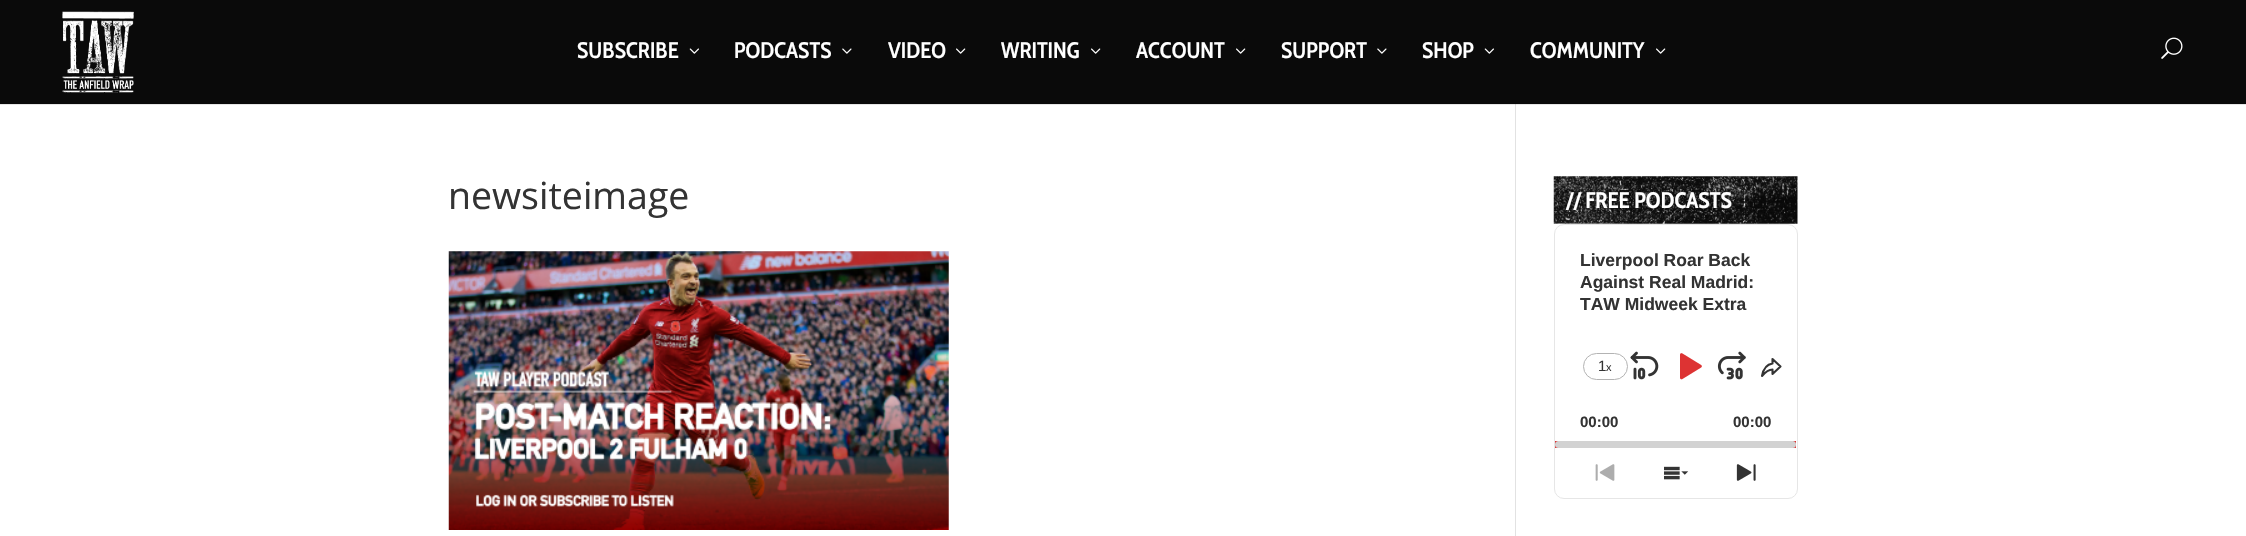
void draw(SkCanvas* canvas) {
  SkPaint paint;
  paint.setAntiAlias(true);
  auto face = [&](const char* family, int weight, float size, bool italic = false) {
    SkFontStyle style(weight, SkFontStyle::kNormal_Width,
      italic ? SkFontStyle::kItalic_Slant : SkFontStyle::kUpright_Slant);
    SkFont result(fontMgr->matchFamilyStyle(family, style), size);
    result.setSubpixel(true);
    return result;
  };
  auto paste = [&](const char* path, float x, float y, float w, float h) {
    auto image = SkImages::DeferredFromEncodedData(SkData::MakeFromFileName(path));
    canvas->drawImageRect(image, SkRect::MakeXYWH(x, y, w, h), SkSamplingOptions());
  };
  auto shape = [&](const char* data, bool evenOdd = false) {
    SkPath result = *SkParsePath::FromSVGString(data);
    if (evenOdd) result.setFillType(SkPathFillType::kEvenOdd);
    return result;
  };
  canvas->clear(0xffffffff);
  paint.setColor(0xffe6e6e6);
  canvas->drawRect(SkRect::MakeXYWH(0, 104, 2246, 1), paint);
  paint.setColor(0xff0a0a0a);
  canvas->drawRect(SkRect::MakeXYWH(0, 0, 2246, 104), paint);
  paste("img/1.png", 62, 11, 72, 82);
  paste("img/2.png", 689, 48, 10, 6);
  paste("img/3.png", 842, 48, 10, 6);
  paste("img/4.png", 956, 48, 10, 6);
  paste("img/4.png", 1091, 48, 10, 6);
  paste("img/4.png", 1236, 48, 10, 6);
  paste("img/3.png", 1377, 48, 10, 6);
  paste("img/2.png", 1484, 48, 10, 6);
  paste("img/4.png", 1656, 48, 10, 6);
  paste("img/5.png", 2161, 37, 22, 22);
  paint.setColor(0xffe2e2e2);
  canvas->drawRect(SkRect::MakeXYWH(1515, 104, 1, 432), paint);
  paint.setColor(0xffcbcbcb);
  canvas->drawRect(SkRect::MakeXYWH(1515, 104, 1, 1), paint);
  paste("img/6.png", 448, 251, 501, 279);
  paste("img/7.png", 1553, 176, 245, 48);
  paint.setStroke(true);
  paint.setStrokeWidth(1);
  paint.setColor(0xffe6e6e6);
  canvas->drawRoundRect(SkRect::MakeXYWH(1554.5f, 224.5f, 243, 274), 9.5f, 9.5f, paint);
  paint.setColor(0xffb3b3b3);
  canvas->drawRoundRect(SkRect::MakeXYWH(1583.5f, 353.5f, 44, 26), 13, 13, paint);
  paste("img/8.png", 1630, 351, 29, 29);
  paste("img/9.png", 1680, 353, 22, 27);
  paste("img/10.png", 1717, 351, 29, 29);
  paint.setStrokeWidth(2.1f);
  paint.setStrokeCap(SkPaint::kRound_Cap);
  paint.setStrokeJoin(SkPaint::kRound_Join);
  paint.setColor(0xff333333);
  canvas->drawPath(shape("M1772.5 359V363.5C1765.5 364.5 1763 370.5 1762 376C1762 376 1767.5 369.5 1772.5 369.5V374L1780.5 366.5Z"), paint);
  paint.setStroke(false);
  paint.setColor(0xffdd3333);
  canvas->drawRect(SkRect::MakeXYWH(1555, 441, 241, 7), paint);
  paint.setColor(0xffd2d2d2);
  canvas->drawRoundRect(SkRect::MakeXYWH(1555, 441, 241, 7), 3.5f, 3.5f, paint);
  paste("img/11.png", 1595, 464, 20, 17);
  paste("img/12.png", 1664, 466, 25, 14);
  paste("img/13.png", 1736, 464, 20, 17);
  auto f0 = face("Cabin Condensed", 600, 22.5f);
  paint.setColor(0xffffffff);
  {
    const struct { const char* s; float x, y; } items[] = {
      {"SUBSCRIBE", 577, 58},
      {"PODCASTS", 734, 58},
      {"VIDEO", 888, 58},
      {"WRITING", 1001, 58},
      {"ACCOUNT", 1136, 58},
      {"SUPPORT", 1281, 58},
      {"SHOP", 1422, 58},
      {"COMMUNITY", 1530, 58},
    };
    for (auto [s, x, y] : items) {
      canvas->drawString(s, x, y, f0, paint);
    }
  }
  auto f1 = face("Open Sans", 400, 37.5f);
  paint.setColor(0xff333333);
  canvas->drawString("newsiteimage", 448, 209, f1, paint);
  auto f2 = face("Cabin Condensed", 700, 22.5f);
  paint.setColor(0xffffffff);
  canvas->drawString("// FREE PODCASTS", 1566, 208, f2, paint);
  auto f3 = face("Liberation Sans", 700, 17.5f);
  paint.setColor(0xff333333);
  {
    const struct { const char* s; float x, y; } items[] = {
      {"Liverpool Roar Back", 1580, 266},
      {"Against Real Madrid:", 1580, 288},
      {"TAW Midweek Extra", 1580, 310},
    };
    for (auto [s, x, y] : items) {
      canvas->drawString(s, x, y, f3, paint);
    }
  }
  auto f4 = face("Liberation Sans", 400, 15);
  canvas->drawString("1", 1598, 371, f4, paint);
  auto f5 = face("Liberation Sans", 400, 11);
  canvas->drawString("x", 1606, 371, f5, paint);
  auto f6 = face("Liberation Sans", 700, 15);
  canvas->drawString("00:00", 1580, 427, f6, paint);
  canvas->drawString("00:00", 1733, 427, f6, paint);
}
